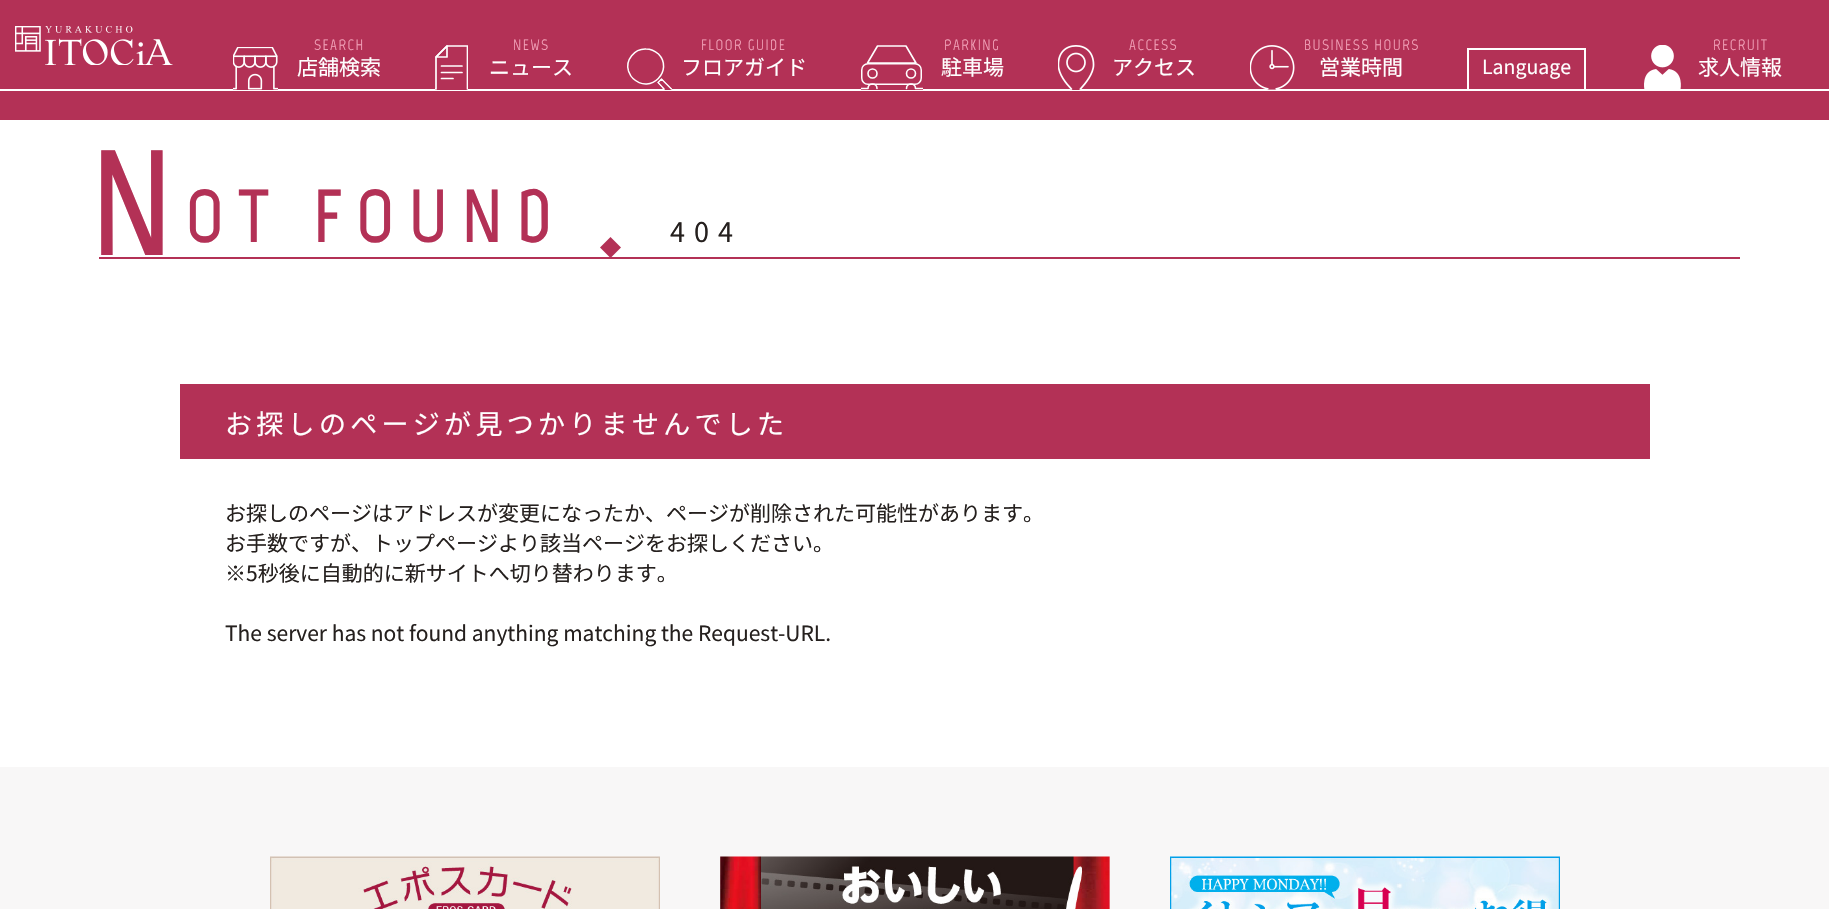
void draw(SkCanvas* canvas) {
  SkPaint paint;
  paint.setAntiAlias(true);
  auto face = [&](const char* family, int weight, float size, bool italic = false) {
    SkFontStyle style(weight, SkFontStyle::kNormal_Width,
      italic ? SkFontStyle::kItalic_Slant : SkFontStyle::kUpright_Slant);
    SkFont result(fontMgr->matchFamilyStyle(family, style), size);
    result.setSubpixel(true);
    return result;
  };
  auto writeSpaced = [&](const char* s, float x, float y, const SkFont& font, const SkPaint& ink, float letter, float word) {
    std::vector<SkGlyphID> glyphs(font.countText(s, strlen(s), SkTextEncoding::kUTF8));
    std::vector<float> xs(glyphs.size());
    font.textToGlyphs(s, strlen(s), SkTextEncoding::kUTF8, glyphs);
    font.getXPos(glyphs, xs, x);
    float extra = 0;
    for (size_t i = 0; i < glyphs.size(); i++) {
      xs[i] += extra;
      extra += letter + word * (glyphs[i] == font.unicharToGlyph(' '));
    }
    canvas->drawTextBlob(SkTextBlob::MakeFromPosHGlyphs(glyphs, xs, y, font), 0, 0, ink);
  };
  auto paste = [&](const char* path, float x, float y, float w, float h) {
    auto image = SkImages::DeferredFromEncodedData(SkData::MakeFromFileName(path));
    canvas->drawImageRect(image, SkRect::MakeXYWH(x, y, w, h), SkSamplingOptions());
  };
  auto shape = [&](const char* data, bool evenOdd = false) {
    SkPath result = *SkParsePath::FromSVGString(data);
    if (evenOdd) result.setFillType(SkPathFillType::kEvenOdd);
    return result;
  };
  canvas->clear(0xffffffff);
  paint.setColor(0xffb33156);
  canvas->drawRect(SkRect::MakeXYWH(0, 0, 1829, 120), paint);
  paste("img/1.png", 15, 26, 158, 39);
  paint.setColor(0xffffffff);
  canvas->drawRect(SkRect::MakeXYWH(0, 89, 1829, 2), paint);
  paste("img/2.png", 233, 47, 45, 43);
  paint.setColor(0xffb33156);
  canvas->drawRect(SkRect::MakeXYWH(435, 89, 33, 1), paint);
  paint.setStroke(true);
  paint.setStrokeWidth(1.7f);
  paint.setStrokeCap(SkPaint::kRound_Cap);
  paint.setStrokeJoin(SkPaint::kRound_Join);
  paint.setColor(0xffffffff);
  canvas->drawPath(shape("M447 46V57H436ZM441.5 66H462M441.5 72.5H462M441.5 78.5H453"), paint);
  canvas->save();
  canvas->clipRect(SkRect::MakeXYWH(435, 45, 33, 45));
  canvas->drawPath(shape("M410 89H436V57L447 46H467.5V89H497"), paint);
  canvas->restore();
  canvas->save();
  canvas->clipRect(SkRect::MakeXYWH(627, 48, 45, 42));
  paint.setStroke(false);
  paint.setColor(0xffb33156);
  canvas->drawPath(shape("M658 83L661.5 79L673.5 91L670 95Z"), paint);
  canvas->restore();
  canvas->save();
  canvas->clipRect(SkRect::MakeXYWH(627, 48, 45, 42));
  canvas->clipPath(shape("M656.5 82.5L661.5 77.5L674.5 90.5L669.5 95.5Z"), true);
  paint.setStroke(true);
  paint.setStrokeWidth(1.5f);
  paint.setColor(0xffffffff);
  canvas->drawPath(shape("M610.5 89H664L658 82.5L661.5 79L671.5 89H708"), paint);
  canvas->restore();
  canvas->drawPath(shape("M658.5 54C674 70 651 95 633 78.5C630.5 76.5 629.5 73.5 628.5 71C625 60 634.5 48.5 646 49C650.5 49 655 51 658.5 54Z"), paint);
  paint.setStroke(false);
  paint.setColor(0xffb33156);
  canvas->drawRect(SkRect::MakeXYWH(861, 89, 62, 1), paint);
  paint.setStroke(true);
  paint.setStrokeWidth(1.6f);
  paint.setColor(0xffffffff);
  canvas->drawPath(shape("M906 46H877.5L867.5 63H916Z"), paint);
  paint.setStrokeWidth(1.5f);
  paint.setStrokeCap(SkPaint::kButt_Cap);
  paint.setStrokeJoin(SkPaint::kMiter_Join);
  canvas->drawRoundRect(SkRect::MakeXYWH(861.75f, 63.75f, 59.5f, 20.5f), 6.25f, 6.25f, paint);
  paint.setStrokeWidth(1.6f);
  canvas->drawCircle(872.5f, 73.5f, 4.5f, paint);
  canvas->drawCircle(911, 73.5f, 4.5f, paint);
  canvas->save();
  canvas->clipRect(SkRect::MakeXYWH(861, 45, 62, 45));
  paint.setStrokeCap(SkPaint::kRound_Cap);
  paint.setStrokeJoin(SkPaint::kRound_Join);
  canvas->drawPath(shape("M877 88.5C877 82.5 868 82.5 868 88.5H840M906.5 88.5C906.5 82.5 915.5 82.5 915.5 88.5H943"), paint);
  canvas->restore();
  paste("img/3.png", 1058, 45, 37, 45);
  paste("img/4.png", 1250, 45, 45, 45);
  paint.setStroke(false);
  {
    const struct { float x, y, w, h; SkColor color; } items[] = {
      {1467, 48, 119, 2, 0xffffffff},
      {1584, 48, 2, 41, 0xffffffff},
      {1467, 48, 2, 41, 0xffffffff},
    };
    for (auto [x, y, w, h, color] : items) {
      paint.setColor(color);
      canvas->drawRect(SkRect::MakeXYWH(x, y, w, h), paint);
    }
  }
  paste("img/5.png", 1644, 45, 37, 44);
  paint.setColor(0xffb33156);
  canvas->drawPath(shape("M610.5 237L621 247.5L610.5 258L600 247.5Z"), paint);
  {
    const struct { float x, y, w, h; SkColor color; } items[] = {
      {99, 257, 1641, 2, 0xffb33156},
      {180, 384, 1470, 75, 0xffb33156},
      {0, 767, 1829, 142, 0xfff8f7f7},
    };
    for (auto [x, y, w, h, color] : items) {
      paint.setColor(color);
      canvas->drawRect(SkRect::MakeXYWH(x, y, w, h), paint);
    }
  }
  paste("img/6.png", 270, 856, 390, 53);
  paste("img/7.png", 720, 856, 390, 53);
  paste("img/8.png", 1170, 856, 390, 53);
  auto f0 = face("Marvel", 400, 15);
  paint.setColor(0xfff1a0b7);
  writeSpaced("SEARCH", 314, 50, f0, paint, 1.5f, 0);
  auto f1 = face("Noto Sans JP", 400, 21);
  paint.setColor(0xffffffff);
  canvas->drawString("店舗検索", 297, 75, f1, paint);
  paint.setColor(0xfff1a0b7);
  writeSpaced("NEWS", 513, 50, f0, paint, 1.5f, 0);
  paint.setColor(0xffffffff);
  canvas->drawString("ニュース", 489, 75, f1, paint);
  paint.setColor(0xfff1a0b7);
  writeSpaced("FLOOR GUIDE", 701, 50, f0, paint, 1.5f, 0);
  paint.setColor(0xffffffff);
  canvas->drawString("フロアガイド", 681, 75, f1, paint);
  paint.setColor(0xfff1a0b7);
  writeSpaced("PARKING", 944, 50, f0, paint, 1.5f, 0);
  paint.setColor(0xffffffff);
  canvas->drawString("駐車場", 941, 75, f1, paint);
  paint.setColor(0xfff1a0b7);
  writeSpaced("ACCESS", 1129, 50, f0, paint, 1.5f, 0);
  paint.setColor(0xffffffff);
  canvas->drawString("アクセス", 1112, 75, f1, paint);
  paint.setColor(0xfff1a0b7);
  writeSpaced("BUSINESS HOURS", 1304, 50, f0, paint, 1.5f, 0);
  paint.setColor(0xffffffff);
  canvas->drawString("営業時間", 1319, 75, f1, paint);
  auto f2 = face("Noto Sans JP", 400, 19.5f);
  canvas->drawString("Language", 1482, 74, f2, paint);
  paint.setColor(0xfff1a0b7);
  writeSpaced("RECRUIT", 1713, 50, f0, paint, 1.5f, 0);
  paint.setColor(0xffffffff);
  canvas->drawString("求人情報", 1698, 75, f1, paint);
  auto f3 = face("Marvel", 700, 144);
  paint.setColor(0xffb33156);
  writeSpaced("N", 90, 255, f3, paint, 15, 0);
  auto f4 = face("Marvel", 700, 72);
  writeSpaced("OT FOUND", 185, 242, f4, paint, 15, 0);
  auto f5 = face("Noto Sans JP", 400, 27);
  paint.setColor(0xff25201e);
  writeSpaced("404", 670, 242, f5, paint, 9, 0);
  paint.setColor(0xffffffff);
  writeSpaced("お探しのページが見つかりませんでした", 225, 434, f5, paint, 4.3f, 0);
  paint.setColor(0xff25201e);
  {
    const struct { const char* s; float x, y; } items[] = {
      {"お探しのページはアドレスが変更になったか、ページが削除された可能性があります。", 225, 521},
      {"お手数ですが、トップページより該当ページをお探しください。", 225, 551},
      {"※5秒後に自動的に新サイトへ切り替わります。", 225, 581},
      {"The server has not found anything matching the Request-URL.", 225, 641},
    };
    for (auto [s, x, y] : items) {
      canvas->drawString(s, x, y, f1, paint);
    }
  }
}
